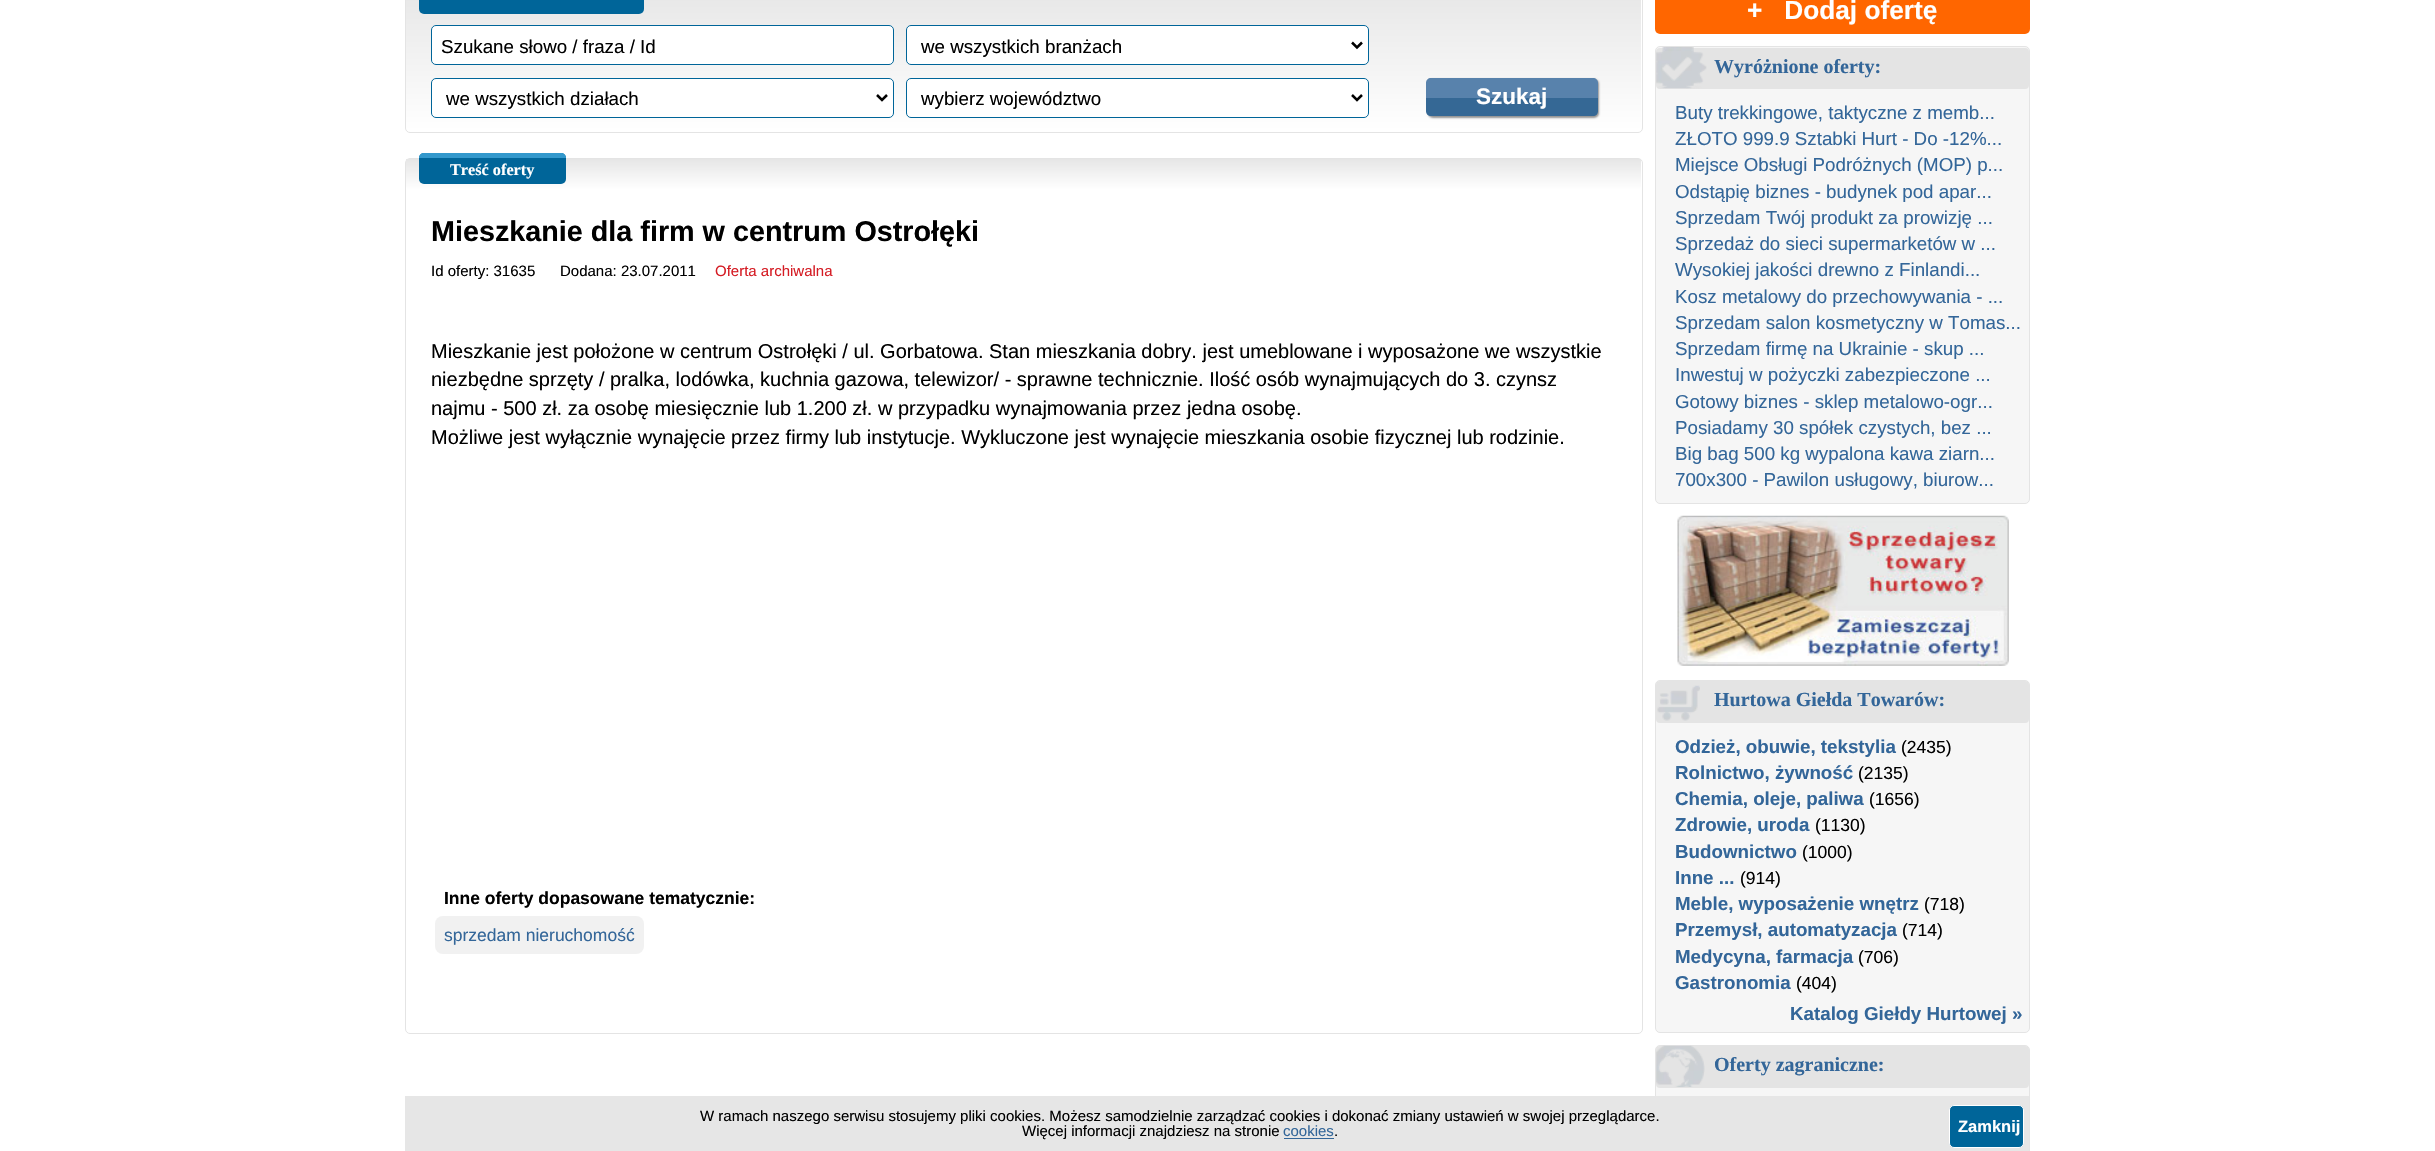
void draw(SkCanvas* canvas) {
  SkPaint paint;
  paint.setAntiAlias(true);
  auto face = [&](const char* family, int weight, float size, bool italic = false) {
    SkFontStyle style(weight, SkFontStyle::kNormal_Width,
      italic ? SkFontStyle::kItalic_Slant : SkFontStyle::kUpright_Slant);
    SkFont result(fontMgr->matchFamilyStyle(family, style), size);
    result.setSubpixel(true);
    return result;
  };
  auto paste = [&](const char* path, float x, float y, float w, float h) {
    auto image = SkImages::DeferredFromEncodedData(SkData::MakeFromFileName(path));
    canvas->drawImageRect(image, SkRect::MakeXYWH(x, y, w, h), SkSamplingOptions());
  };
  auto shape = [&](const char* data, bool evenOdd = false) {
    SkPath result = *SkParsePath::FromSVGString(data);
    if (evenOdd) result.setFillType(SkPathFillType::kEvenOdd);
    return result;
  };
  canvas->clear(0xffffffff);
  paint.setStroke(true);
  paint.setStrokeWidth(1);
  paint.setColor(0xffe4e4e4);
  canvas->drawRoundRect(SkRect::MakeXYWH(405.5f, -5.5f, 1237, 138), 4.5f, 4.5f, paint);
  paint.setStroke(false);
  {
    const SkColor colors[] = {0xffe6e6e6, 0xffffffff};
    const float stops[] = {0, 1};
    const SkPoint ends[] = {{1024, -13}, {1024, 131}};
    paint.setShader(SkGradientShader::MakeLinear(ends, colors, stops, 2, SkTileMode::kClamp));
    paint.setAlpha(255);
  }
  canvas->drawPath(shape("M406-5H1641V126C1641 129 1639 131 1636 131H411C408 131 406 129 406 126Z"), paint);
  paint.setShader(nullptr);
  paint.setColor(0xff006599);
  canvas->drawRoundRect(SkRect::MakeXYWH(419, -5, 225, 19), 5, 5, paint);
  paint.setColor(0xffffffff);
  canvas->drawRoundRect(SkRect::MakeXYWH(431.5f, 25.5f, 462, 39), 4.5f, 4.5f, paint);
  paint.setStroke(true);
  paint.setColor(0xff006599);
  canvas->drawRoundRect(SkRect::MakeXYWH(431.5f, 25.5f, 462, 39), 4.5f, 4.5f, paint);
  paint.setStroke(false);
  paint.setColor(0xffffffff);
  canvas->drawRoundRect(SkRect::MakeXYWH(906.5f, 25.5f, 462, 39), 4.5f, 4.5f, paint);
  paint.setStroke(true);
  paint.setColor(0xff006599);
  canvas->drawRoundRect(SkRect::MakeXYWH(906.5f, 25.5f, 462, 39), 4.5f, 4.5f, paint);
  paint.setStrokeWidth(2.5f);
  paint.setColor(0xff000000);
  canvas->drawPath(shape("M1352 42.5L1357 47.5L1362 42.5"), paint);
  paint.setStroke(false);
  paint.setColor(0xffffffff);
  canvas->drawRoundRect(SkRect::MakeXYWH(431.5f, 78.5f, 462, 39), 4.5f, 4.5f, paint);
  paint.setStroke(true);
  paint.setStrokeWidth(1);
  paint.setColor(0xff006599);
  canvas->drawRoundRect(SkRect::MakeXYWH(431.5f, 78.5f, 462, 39), 4.5f, 4.5f, paint);
  paint.setStrokeWidth(2.5f);
  paint.setColor(0xff000000);
  canvas->drawPath(shape("M877 95L882 100L887 95"), paint);
  paint.setStroke(false);
  paint.setColor(0xffffffff);
  canvas->drawRoundRect(SkRect::MakeXYWH(906.5f, 78.5f, 462, 39), 4.5f, 4.5f, paint);
  paint.setStroke(true);
  paint.setStrokeWidth(1);
  paint.setColor(0xff006599);
  canvas->drawRoundRect(SkRect::MakeXYWH(906.5f, 78.5f, 462, 39), 4.5f, 4.5f, paint);
  paint.setStrokeWidth(2.5f);
  paint.setColor(0xff000000);
  canvas->drawPath(shape("M1352 95L1357 100L1362 95"), paint);
  paint.setStroke(false);
  paint.setColor(0xff939393);
  paint.setMaskFilter(SkMaskFilter::MakeBlur(kNormal_SkBlurStyle, 1));
  canvas->drawRoundRect(SkRect::MakeXYWH(1428, 79, 171, 39), 5, 5, paint);
  paint.setMaskFilter(nullptr);
  paint.setColor(0xff5882ac);
  canvas->drawPath(shape("M1431 78H1593C1596 78 1598 80 1598 83V98H1426V83C1426 80 1428 78 1431 78Z"), paint);
  paint.setColor(0xff356895);
  canvas->drawPath(shape("M1426 98H1598V111C1598 114 1596 116 1593 116H1431C1428 116 1426 114 1426 111Z"), paint);
  paint.setStroke(true);
  paint.setStrokeWidth(1);
  paint.setColor(0xffe4e4e4);
  canvas->drawRoundRect(SkRect::MakeXYWH(405.5f, 158.5f, 1237, 875), 4.5f, 4.5f, paint);
  paint.setStroke(false);
  {
    const SkColor colors[] = {0xffe6e6e6, 0xffffffff};
    const float stops[] = {0, 1};
    const SkPoint ends[] = {{1024, 159}, {1024, 190}};
    paint.setShader(SkGradientShader::MakeLinear(ends, colors, stops, 2, SkTileMode::kClamp));
    paint.setAlpha(255);
  }
  canvas->drawPath(shape("M406 159H1641V185C1641 188 1639 190 1636 190H411C408 190 406 188 406 185Z"), paint);
  paint.setShader(nullptr);
  paint.setColor(0xff006599);
  canvas->drawRoundRect(SkRect::MakeXYWH(419, 153, 147, 31), 5, 5, paint);
  paint.setColor(0xff3398cc);
  canvas->drawPath(shape("M424 153H561C564 153 566 155 566 158H419C419 155 421 153 424 153Z"), paint);
  paint.setColor(0xfff1f1f1);
  canvas->drawRoundRect(SkRect::MakeXYWH(435, 916, 209, 38), 8, 8, paint);
  paint.setColor(0xffff6600);
  canvas->drawRoundRect(SkRect::MakeXYWH(1655, -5, 375, 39), 5, 5, paint);
  paint.setColor(0xfff6f6f6);
  canvas->drawRoundRect(SkRect::MakeXYWH(1655.5f, 46.5f, 374, 457), 4.5f, 4.5f, paint);
  paint.setStroke(true);
  paint.setColor(0xffe4e4e4);
  canvas->drawRoundRect(SkRect::MakeXYWH(1655.5f, 46.5f, 374, 457), 4.5f, 4.5f, paint);
  paint.setStroke(false);
  canvas->drawRoundRect(SkRect::MakeXYWH(1656, 48, 373, 41), 4, 4, paint);
  paste("img/1.png", 1656, 47, 51, 42);
  paste("img/2.png", 1677, 515, 332, 151);
  paint.setColor(0xfff6f6f6);
  canvas->drawRoundRect(SkRect::MakeXYWH(1655.5f, 680.5f, 374, 352), 4.5f, 4.5f, paint);
  paint.setStroke(true);
  paint.setColor(0xffe4e4e4);
  canvas->drawRoundRect(SkRect::MakeXYWH(1655.5f, 680.5f, 374, 352), 4.5f, 4.5f, paint);
  paint.setStroke(false);
  canvas->drawRoundRect(SkRect::MakeXYWH(1656, 681, 373, 42), 4, 4, paint);
  paste("img/3.png", 1657, 685, 43, 36);
  paint.setColor(0xfff6f6f6);
  canvas->drawRoundRect(SkRect::MakeXYWH(1655.5f, 1045.5f, 374, 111), 4.5f, 4.5f, paint);
  paint.setStroke(true);
  paint.setColor(0xffe4e4e4);
  canvas->drawRoundRect(SkRect::MakeXYWH(1655.5f, 1045.5f, 374, 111), 4.5f, 4.5f, paint);
  paint.setStroke(false);
  canvas->drawRoundRect(SkRect::MakeXYWH(1656, 1046, 373, 42), 4, 4, paint);
  paste("img/4.png", 1656, 1045, 49, 42);
  paint.setColor(0xffe6e6e6);
  canvas->drawRect(SkRect::MakeXYWH(405, 1096, 1624, 55), paint);
  paint.setColor(0xff336699);
  canvas->drawRect(SkRect::MakeXYWH(1284, 1138, 50, 1), paint);
  paint.setColor(0xff006599);
  canvas->drawRoundRect(SkRect::MakeXYWH(1949.5f, 1105.5f, 74, 42), 4.5f, 4.5f, paint);
  paint.setStroke(true);
  paint.setColor(0xffffffff);
  canvas->drawRoundRect(SkRect::MakeXYWH(1949.5f, 1105.5f, 74, 42), 4.5f, 4.5f, paint);
  auto f0 = face("Liberation Sans", 400, 18.75f);
  paint.setStroke(false);
  paint.setColor(0xff000000);
  {
    const struct { const char* s; float x, y; } items[] = {
      {"Szukane słowo / fraza / Id", 441, 53},
      {"we wszystkich branżach", 921, 53},
      {"we wszystkich działach", 446, 105},
      {"wybierz województwo", 921, 105},
    };
    for (auto [s, x, y] : items) {
      canvas->drawString(s, x, y, f0, paint);
    }
  }
  auto f1 = face("Liberation Sans", 700, 22.5f);
  paint.setColor(0xffffffff);
  canvas->drawString("Szukaj", 1476, 104, f1, paint);
  auto f2 = face("Liberation Serif", 700, 16.25f);
  canvas->drawString("Treść oferty", 450, 175, f2, paint);
  auto f3 = face("Liberation Sans", 700, 28.75f);
  paint.setColor(0xff000000);
  canvas->drawString("Mieszkanie dla firm w centrum Ostrołęki", 431, 241, f3, paint);
  auto f4 = face("Liberation Sans", 400, 15);
  canvas->drawString("Id oferty: 31635", 431, 276, f4, paint);
  canvas->drawString("Dodana: 23.07.2011", 560, 276, f4, paint);
  paint.setColor(0xffd51c24);
  canvas->drawString("Oferta archiwalna", 715, 276, f4, paint);
  auto f5 = face("Liberation Sans", 400, 20);
  paint.setColor(0xff000000);
  {
    const struct { const char* s; float x, y; } items[] = {
      {"Mieszkanie jest położone w centrum Ostrołęki / ul. Gorbatowa. Stan mieszkania dobry. jest umeblowane i wyposażone we wszystkie", 431, 358},
      {"niezbędne sprzęty / pralka, lodówka, kuchnia gazowa, telewizor/ - sprawne technicznie. Ilość osób wynajmujących do 3. czynsz", 431, 386},
      {"najmu - 500 zł. za osobę miesięcznie lub 1.200 zł. w przypadku wynajmowania przez jedna osobę.", 431, 415},
      {"Możliwe jest wyłącznie wynajęcie przez firmy lub instytucje. Wykluczone jest wynajęcie mieszkania osobie fizycznej lub rodzinie.", 431, 444},
    };
    for (auto [s, x, y] : items) {
      canvas->drawString(s, x, y, f5, paint);
    }
  }
  auto f6 = face("Liberation Sans", 700, 17.5f);
  canvas->drawString("Inne oferty dopasowane tematycznie:", 444, 904, f6, paint);
  auto f7 = face("Liberation Sans", 400, 17.5f);
  paint.setColor(0xff336699);
  canvas->drawString("sprzedam nieruchomość", 444, 941, f7, paint);
  auto f8 = face("Liberation Sans", 700, 26.25f);
  paint.setColor(0xffffffff);
  canvas->drawString("+   Dodaj ofertę", 1747, 19, f8, paint);
  auto f9 = face("Liberation Serif", 700, 20);
  paint.setColor(0xff336699);
  canvas->drawString("Wyróżnione oferty:", 1714, 73, f9, paint);
  {
    const struct { const char* s; float x, y; } items[] = {
      {"Buty trekkingowe, taktyczne z memb...", 1675, 119},
      {"ZŁOTO 999.9 Sztabki Hurt - Do -12%...", 1675, 145},
      {"Miejsce Obsługi Podróżnych (MOP) p...", 1675, 171},
      {"Odstąpię biznes - budynek pod apar...", 1675, 198},
      {"Sprzedam Twój produkt za prowizję ...", 1675, 224},
      {"Sprzedaż do sieci supermarketów w ...", 1675, 250},
      {"Wysokiej jakości drewno z Finlandi...", 1675, 276},
      {"Kosz metalowy do przechowywania - ...", 1675, 303},
      {"Sprzedam salon kosmetyczny w Tomas...", 1675, 329},
      {"Sprzedam firmę na Ukrainie - skup ...", 1675, 355},
      {"Inwestuj w pożyczki zabezpieczone ...", 1675, 381},
      {"Gotowy biznes - sklep metalowo-ogr...", 1675, 408},
      {"Posiadamy 30 spółek czystych, bez ...", 1675, 434},
      {"Big bag 500 kg wypalona kawa ziarn...", 1675, 460},
      {"700x300 - Pawilon usługowy, biurow...", 1675, 486},
    };
    for (auto [s, x, y] : items) {
      canvas->drawString(s, x, y, f0, paint);
    }
  }
  canvas->drawString("Hurtowa Giełda Towarów:", 1714, 706, f9, paint);
  auto f10 = face("Liberation Sans", 700, 18.75f);
  canvas->drawString("Odzież, obuwie, tekstylia", 1675, 753, f10, paint);
  paint.setColor(0xff000000);
  canvas->drawString("(2435)", 1901, 753, f7, paint);
  paint.setColor(0xff336699);
  canvas->drawString("Rolnictwo, żywność", 1675, 779, f10, paint);
  paint.setColor(0xff000000);
  canvas->drawString("(2135)", 1858, 779, f7, paint);
  paint.setColor(0xff336699);
  canvas->drawString("Chemia, oleje, paliwa", 1675, 805, f10, paint);
  paint.setColor(0xff000000);
  canvas->drawString("(1656)", 1869, 805, f7, paint);
  paint.setColor(0xff336699);
  canvas->drawString("Zdrowie, uroda", 1675, 831, f10, paint);
  paint.setColor(0xff000000);
  canvas->drawString("(1130)", 1815, 831, f7, paint);
  paint.setColor(0xff336699);
  canvas->drawString("Budownictwo", 1675, 858, f10, paint);
  paint.setColor(0xff000000);
  canvas->drawString("(1000)", 1802, 858, f7, paint);
  paint.setColor(0xff336699);
  canvas->drawString("Inne ...", 1675, 884, f10, paint);
  paint.setColor(0xff000000);
  canvas->drawString("(914)", 1740, 884, f7, paint);
  paint.setColor(0xff336699);
  canvas->drawString("Meble, wyposażenie wnętrz", 1675, 910, f10, paint);
  paint.setColor(0xff000000);
  canvas->drawString("(718)", 1924, 910, f7, paint);
  paint.setColor(0xff336699);
  canvas->drawString("Przemysł, automatyzacja", 1675, 936, f10, paint);
  paint.setColor(0xff000000);
  canvas->drawString("(714)", 1902, 936, f7, paint);
  paint.setColor(0xff336699);
  canvas->drawString("Medycyna, farmacja", 1675, 963, f10, paint);
  paint.setColor(0xff000000);
  canvas->drawString("(706)", 1858, 963, f7, paint);
  paint.setColor(0xff336699);
  canvas->drawString("Gastronomia", 1675, 989, f10, paint);
  paint.setColor(0xff000000);
  canvas->drawString("(404)", 1796, 989, f7, paint);
  paint.setColor(0xff336699);
  canvas->drawString("Katalog Giełdy Hurtowej »", 1790, 1020, f10, paint);
  canvas->drawString("Oferty zagraniczne:", 1714, 1071, f9, paint);
  paint.setColor(0xff000000);
  canvas->drawString("W ramach naszego serwisu stosujemy pliki cookies. Możesz samodzielnie zarządzać cookies i dokonać zmiany ustawień w swojej przeglądarce.", 700, 1121, f4, paint);
  canvas->drawString("Więcej informacji znajdziesz na stronie", 1022, 1136, f4, paint);
  paint.setColor(0xff336699);
  canvas->drawString("cookies", 1283, 1136, f4, paint);
  paint.setColor(0xff000000);
  canvas->drawString(".", 1334, 1136, f4, paint);
  auto f11 = face("Liberation Sans", 700, 16.5f);
  paint.setColor(0xffffffff);
  canvas->drawString("Zamknij", 1958, 1132, f11, paint);
}
